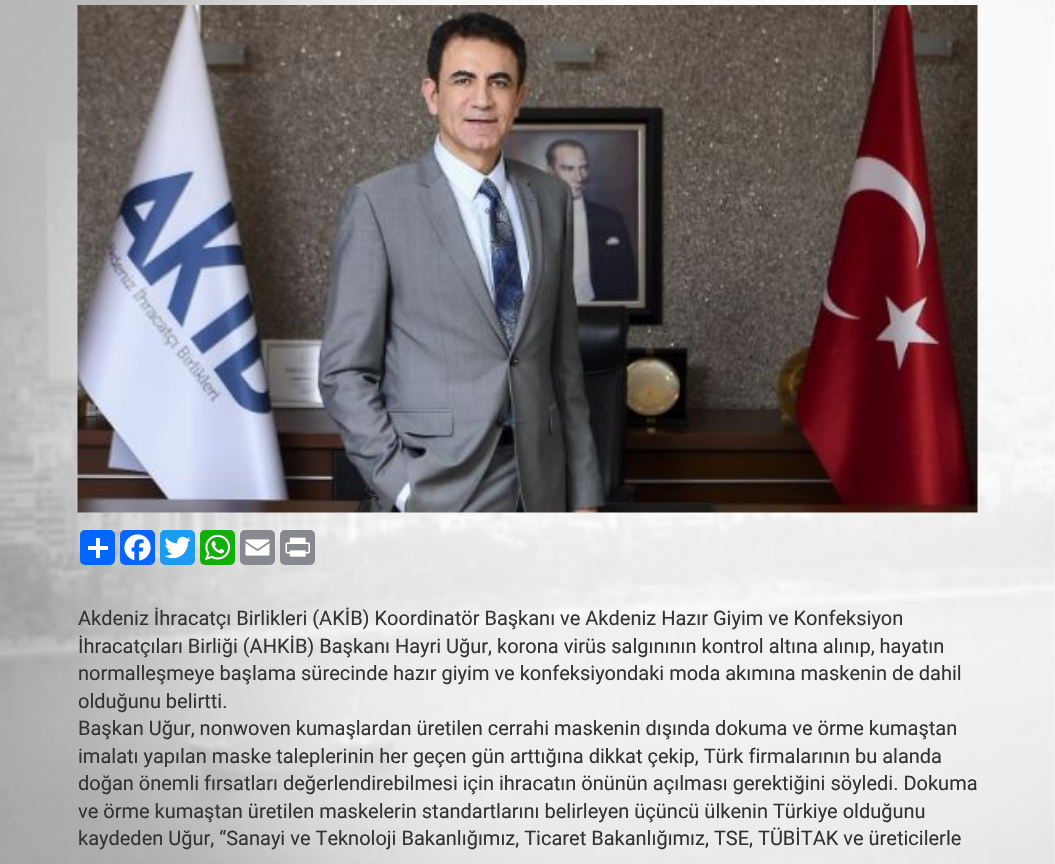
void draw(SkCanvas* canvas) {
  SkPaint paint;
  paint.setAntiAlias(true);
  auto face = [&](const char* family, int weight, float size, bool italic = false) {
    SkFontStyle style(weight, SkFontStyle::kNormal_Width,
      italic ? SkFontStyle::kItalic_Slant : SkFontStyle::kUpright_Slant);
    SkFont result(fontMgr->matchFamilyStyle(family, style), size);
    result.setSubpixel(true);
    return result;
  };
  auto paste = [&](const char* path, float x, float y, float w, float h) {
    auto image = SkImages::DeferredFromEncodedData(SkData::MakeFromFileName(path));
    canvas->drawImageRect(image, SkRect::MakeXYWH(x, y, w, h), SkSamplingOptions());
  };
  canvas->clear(0xffffffff);
  paste("img/1.png", 0, 0, 1055, 864);
  paste("img/2.png", 77, 5, 901, 508);
  paint.setColor(0xff0166ff);
  canvas->drawRoundRect(SkRect::MakeXYWH(80, 530, 35, 35), 5, 5, paint);
  paint.setColor(0xffffffff);
  canvas->drawRect(SkRect::MakeXYWH(96, 538, 4, 20), paint);
  canvas->drawRect(SkRect::MakeXYWH(88, 546, 20, 4), paint);
  paint.setColor(0xff0866ff);
  canvas->drawRoundRect(SkRect::MakeXYWH(120, 530, 35, 35), 5, 5, paint);
  paste("img/3.png", 124, 534, 27, 27);
  paint.setColor(0xff1d9bf0);
  canvas->drawRoundRect(SkRect::MakeXYWH(160, 530, 35, 35), 5, 5, paint);
  paste("img/4.png", 164, 536, 27, 23);
  paint.setColor(0xff12af0a);
  canvas->drawRoundRect(SkRect::MakeXYWH(200, 530, 35, 35), 5, 5, paint);
  paste("img/5.png", 205, 534, 26, 27);
  paint.setColor(0xff888990);
  canvas->drawRoundRect(SkRect::MakeXYWH(240, 530, 35, 35), 5, 5, paint);
  paste("img/6.png", 245, 539, 25, 17);
  canvas->drawRoundRect(SkRect::MakeXYWH(280, 530, 35, 35), 5, 5, paint);
  paste("img/7.png", 285, 537, 25, 20);
  auto f0 = face("Roboto", 400, 20);
  paint.setColor(0xff333333);
  {
    const struct { const char* s; float x, y; } items[] = {
      {"Akdeniz İhracatçı Birlikleri (AKİB) Koordinatör Başkanı ve Akdeniz Hazır Giyim ve Konfeksiyon", 78, 625},
      {"İhracatçıları Birliği (AHKİB) Başkanı Hayri Uğur, korona virüs salgınının kontrol altına alınıp, hayatın", 78, 653},
      {"normalleşmeye başlama sürecinde hazır giyim ve konfeksiyondaki moda akımına maskenin de dahil", 78, 680},
      {"olduğunu belirtti.", 78, 708},
      {"Başkan Uğur, nonwoven kumaşlardan üretilen cerrahi maskenin dışında dokuma ve örme kumaştan", 78, 735},
      {"imalatı yapılan maske taleplerinin her geçen gün arttığına dikkat çekip, Türk firmalarının bu alanda", 78, 763},
      {"doğan önemli fırsatları değerlendirebilmesi için ihracatın önünün açılması gerektiğini söyledi. Dokuma", 78, 790},
      {"ve örme kumaştan üretilen maskelerin standartlarını belirleyen üçüncü ülkenin Türkiye olduğunu", 78, 818},
      {"kaydeden Uğur, “Sanayi ve Teknoloji Bakanlığımız, Ticaret Bakanlığımız, TSE, TÜBİTAK ve üreticilerle", 78, 845},
    };
    for (auto [s, x, y] : items) {
      canvas->drawString(s, x, y, f0, paint);
    }
  }
}
